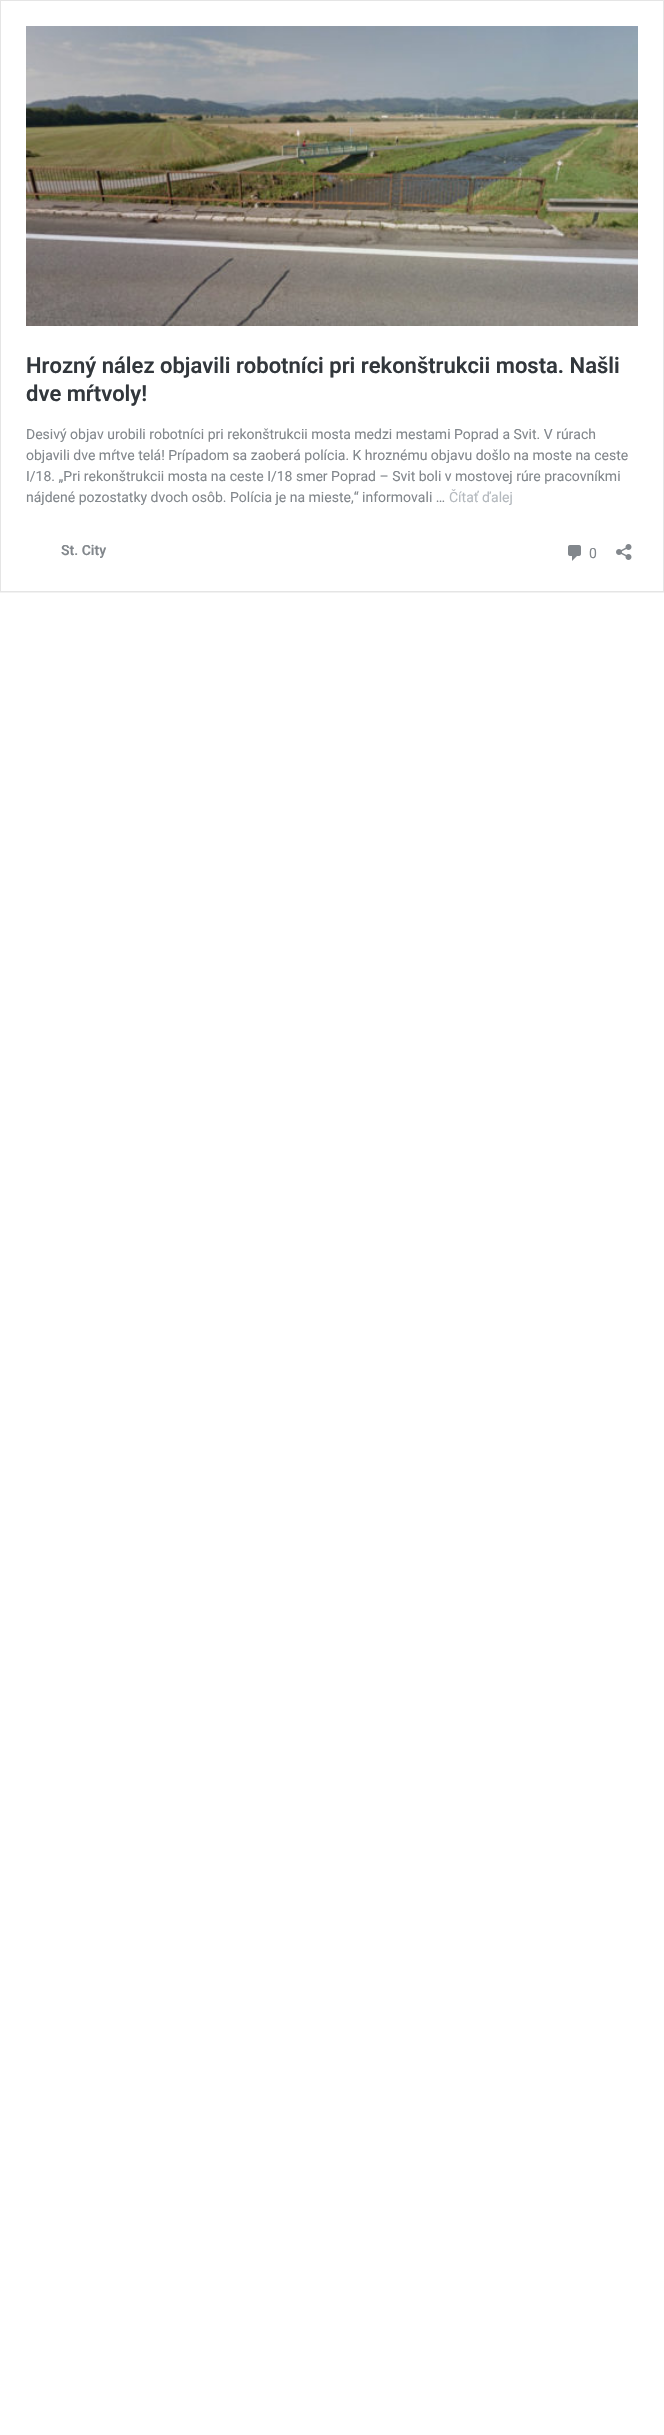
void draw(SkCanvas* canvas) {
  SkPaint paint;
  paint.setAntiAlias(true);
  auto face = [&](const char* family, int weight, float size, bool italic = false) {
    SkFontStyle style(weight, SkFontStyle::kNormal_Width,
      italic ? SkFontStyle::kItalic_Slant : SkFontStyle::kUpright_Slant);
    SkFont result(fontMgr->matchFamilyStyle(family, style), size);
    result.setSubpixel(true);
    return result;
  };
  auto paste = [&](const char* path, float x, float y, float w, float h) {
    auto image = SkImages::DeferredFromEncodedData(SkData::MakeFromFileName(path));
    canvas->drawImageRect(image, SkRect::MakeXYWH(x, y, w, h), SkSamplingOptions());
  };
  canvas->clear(0xffffffff);
  canvas->save();
  canvas->clipRect(SkRect::MakeXYWH(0, 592, 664, 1));
  paint.setColor(0x0d000000);
  paint.setMaskFilter(SkMaskFilter::MakeBlur(kNormal_SkBlurStyle, 0.5f));
  canvas->drawRect(SkRect::MakeXYWH(0, 1, 664, 592), paint);
  paint.setMaskFilter(nullptr);
  canvas->restore();
  paint.setStroke(true);
  paint.setStrokeWidth(1);
  paint.setColor(0xffe5e5e5);
  canvas->drawRect(SkRect::MakeXYWH(0.5f, 0.5f, 663, 591), paint);
  paste("img/1.png", 26, 26, 612, 300);
  paste("img/2.png", 568, 545, 13, 16);
  paste("img/3.png", 616, 544, 16, 16);
  auto f0 = face("Roboto", 600, 22);
  paint.setStroke(false);
  paint.setColor(0xff32373c);
  canvas->drawString("Hrozný nález objavili robotníci pri rekonštrukcii mosta. Našli", 26, 373, f0, paint);
  canvas->drawString("dve mŕtvoly!", 26, 401, f0, paint);
  auto f1 = face("Roboto", 400, 14);
  paint.setColor(0xff82878c);
  {
    const struct { const char* s; float x, y; } items[] = {
      {"Desivý objav urobili robotníci pri rekonštrukcii mosta medzi mestami Poprad a Svit. V rúrach", 26, 439},
      {"objavili dve mŕtve telá! Prípadom sa zaoberá polícia. K hroznému objavu došlo na moste na ceste", 26, 460},
      {"I/18. „Pri rekonštrukcii mosta na ceste I/18 smer Poprad – Svit boli v mostovej rúre pracovníkmi", 26, 481},
      {"nájdené pozostatky dvoch osôb. Polícia je na mieste,“ informovali …", 26, 502},
    };
    for (auto [s, x, y] : items) {
      canvas->drawString(s, x, y, f1, paint);
    }
  }
  paint.setColor(0xffb4b9be);
  canvas->drawString("Čítať ďalej", 449, 502, f1, paint);
  auto f2 = face("Roboto", 600, 14);
  paint.setColor(0xff82878c);
  canvas->drawString("St. City", 61, 555, f2, paint);
  canvas->drawString("0", 589, 558, f1, paint);
}
